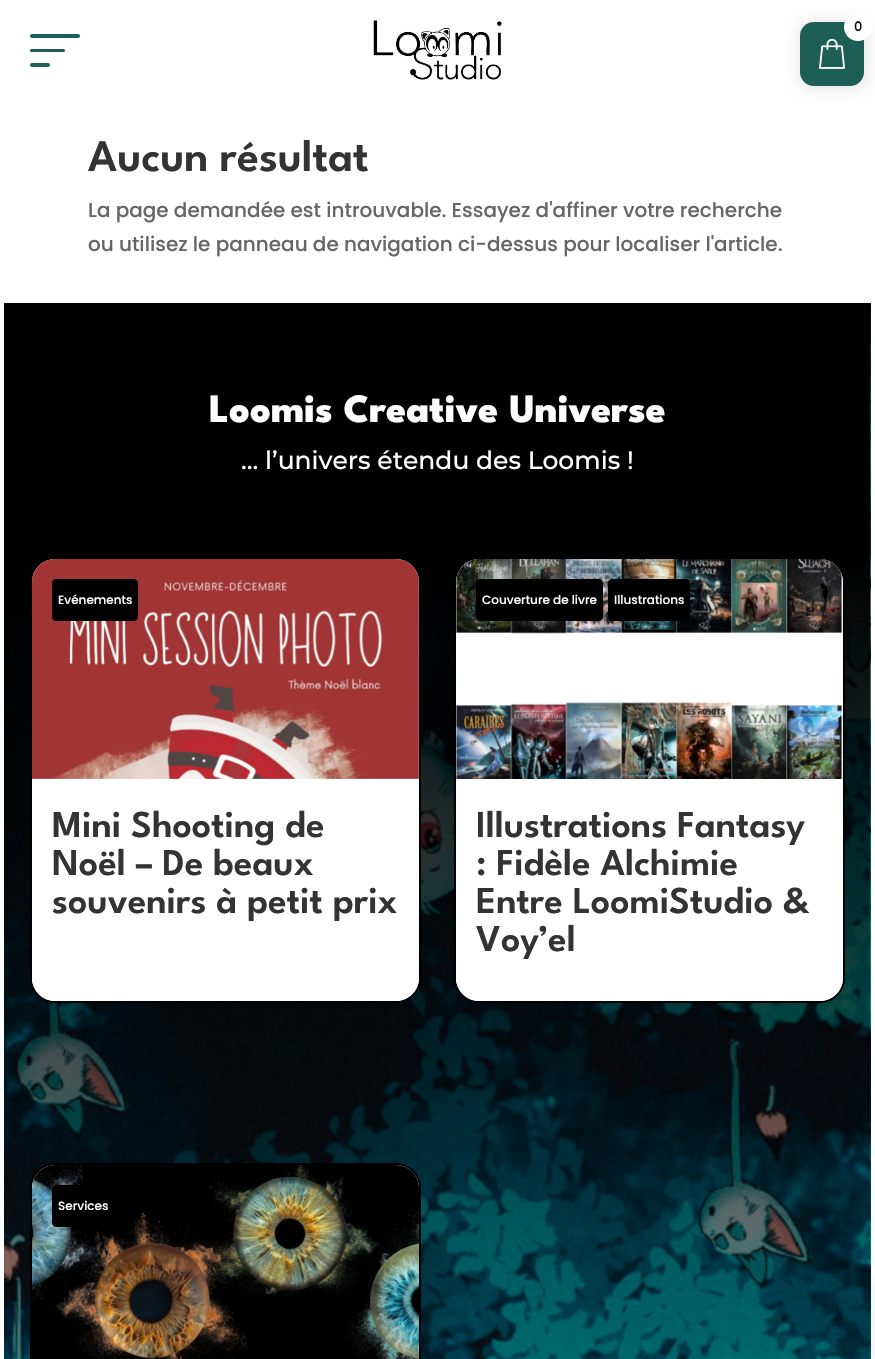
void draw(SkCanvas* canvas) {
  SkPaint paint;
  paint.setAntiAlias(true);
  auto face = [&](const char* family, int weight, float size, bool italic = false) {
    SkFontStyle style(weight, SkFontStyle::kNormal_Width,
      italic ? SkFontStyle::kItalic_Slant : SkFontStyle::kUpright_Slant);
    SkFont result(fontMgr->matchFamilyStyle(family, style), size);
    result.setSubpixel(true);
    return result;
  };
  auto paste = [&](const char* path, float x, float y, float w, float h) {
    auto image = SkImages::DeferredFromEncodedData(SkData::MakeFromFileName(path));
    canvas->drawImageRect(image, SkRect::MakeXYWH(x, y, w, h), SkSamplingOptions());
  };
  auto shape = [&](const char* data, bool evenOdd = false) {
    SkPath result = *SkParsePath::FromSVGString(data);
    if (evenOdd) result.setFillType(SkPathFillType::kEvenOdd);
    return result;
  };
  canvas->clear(0xffffffff);
  paint.setColor(0x1a000000);
  paint.setMaskFilter(SkMaskFilter::MakeBlur(kNormal_SkBlurStyle, 7.5f));
  canvas->drawRoundRect(SkRect::MakeXYWH(799, 21, 68, 68), 16, 16, paint);
  paint.setMaskFilter(nullptr);
  paint.setColor(0xff1d5e55);
  canvas->drawRoundRect(SkRect::MakeXYWH(800, 22, 64, 64), 14, 14, paint);
  paste("img/1.png", 819, 38, 26, 31);
  paint.setColor(0xffffffff);
  canvas->drawCircle(858, 27, 14, paint);
  paste("img/3.png", 4, 303, 867, 1056);
  paint.setColor(0x1a000000);
  paint.setMaskFilter(SkMaskFilter::MakeBlur(kNormal_SkBlurStyle, 5));
  canvas->drawRect(SkRect::MakeXYWH(875, 1280, 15, 78), paint);
  paint.setMaskFilter(nullptr);
  paint.setColor(0xff1d5e55);
  canvas->drawRoundRect(SkRect::MakeXYWH(30, 34, 50, 4), 2, 2, paint);
  canvas->drawRoundRect(SkRect::MakeXYWH(30, 49, 35, 3), 1.5f, 1.5f, paint);
  canvas->drawRoundRect(SkRect::MakeXYWH(30, 63, 20, 4), 2, 2, paint);
  paste("img/2.png", 373, 20, 129, 60);
  paint.setColor(0xffffffff);
  canvas->drawRoundRect(SkRect::MakeXYWH(31, 558, 389, 444), 24, 24, paint);
  paint.setStroke(true);
  paint.setStrokeWidth(2);
  paint.setColor(0xff000000);
  canvas->drawRoundRect(SkRect::MakeXYWH(31, 558, 389, 444), 24, 24, paint);
  paste("img/4.png", 32, 559, 387, 220);
  paint.setStroke(false);
  canvas->drawPath(shape("M56 579H134C136 579 138 581 138 583V617C138 619 136 621 134 621H56C54 621 52 619 52 617V583C52 581 54 579 56 579Z"), paint);
  paint.setColor(0xffffffff);
  canvas->drawPath(shape("M32 779H419V978C419 990.5 408.5 1001 396 1001H55C42.5 1001 32 990.5 32 978Z"), paint);
  canvas->drawRoundRect(SkRect::MakeXYWH(455, 558, 389, 444), 24, 24, paint);
  paint.setStroke(true);
  paint.setColor(0xff000000);
  canvas->drawRoundRect(SkRect::MakeXYWH(455, 558, 389, 444), 24, 24, paint);
  paste("img/5.png", 456, 559, 387, 220);
  paint.setStroke(false);
  canvas->drawPath(shape("M480 579H599C601 579 603 581 603 583V617C603 619 601 621 599 621H480C478 621 476 619 476 617V583C476 581 478 579 480 579Z"), paint);
  canvas->drawPath(shape("M612 579H686C688 579 690 581 690 583V617C690 619 688 621 686 621H612C610 621 608 619 608 617V583C608 581 610 579 612 579Z"), paint);
  paint.setColor(0xffffffff);
  canvas->drawPath(shape("M456 779H843V978C843 990.5 832.5 1001 820 1001H479C466.5 1001 456 990.5 456 978Z"), paint);
  canvas->drawRoundRect(SkRect::MakeXYWH(31, 1164, 389, 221), 24, 24, paint);
  paint.setStroke(true);
  paint.setColor(0xff000000);
  canvas->drawRoundRect(SkRect::MakeXYWH(31, 1164, 389, 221), 24, 24, paint);
  paste("img/6.png", 32, 1165, 387, 194);
  paint.setStroke(false);
  canvas->drawPath(shape("M56 1185H111C113 1185 115 1187 115 1189V1223C115 1225 113 1227 111 1227H56C54 1227 52 1225 52 1223V1189C52 1187 54 1185 56 1185Z"), paint);
  auto f0 = face("Poppins", 500, 13);
  paint.setColor(0xff0a0a0a);
  canvas->drawString("0", 854, 31, f0, paint);
  auto f1 = face("League Spartan", 600, 45);
  paint.setColor(0xff333333);
  canvas->drawString("Aucun résultat", 88, 171, f1, paint);
  auto f2 = face("Poppins", 500, 20);
  paint.setColor(0xff666666);
  canvas->drawString("La page demandée est introuvable. Essayez d'affiner votre recherche", 88, 217, f2, paint);
  canvas->drawString("ou utilisez le panneau de navigation ci-dessus pour localiser l'article.", 88, 251, f2, paint);
  auto f3 = face("League Spartan", 800, 40);
  paint.setColor(0xffffffff);
  canvas->drawString("Loomis Creative Universe", 209, 422, f3, paint);
  auto f4 = face("Montserrat", 500, 25);
  canvas->drawString("… l’univers étendu des Loomis !", 241, 469, f4, paint);
  auto f5 = face("Poppins", 500, 12);
  canvas->drawString("Evénements", 58, 604, f5, paint);
  auto f6 = face("League Spartan", 600, 38);
  paint.setColor(0xff333333);
  {
    const struct { const char* s; float x, y; } items[] = {
      {"Mini Shooting de", 52, 837},
      {"Noël – De beaux", 52, 875},
      {"souvenirs à petit prix", 52, 913},
    };
    for (auto [s, x, y] : items) {
      canvas->drawString(s, x, y, f6, paint);
    }
  }
  paint.setColor(0xffffffff);
  canvas->drawString("Couverture de livre", 482, 604, f5, paint);
  canvas->drawString("Illustrations", 614, 604, f5, paint);
  paint.setColor(0xff333333);
  {
    const struct { const char* s; float x, y; } items[] = {
      {"Illustrations Fantasy", 476, 837},
      {": Fidèle Alchimie", 476, 875},
      {"Entre LoomiStudio &", 476, 913},
      {"Voy’el", 476, 951},
    };
    for (auto [s, x, y] : items) {
      canvas->drawString(s, x, y, f6, paint);
    }
  }
  paint.setColor(0xffffffff);
  canvas->drawString("Services", 58, 1210, f5, paint);
}
